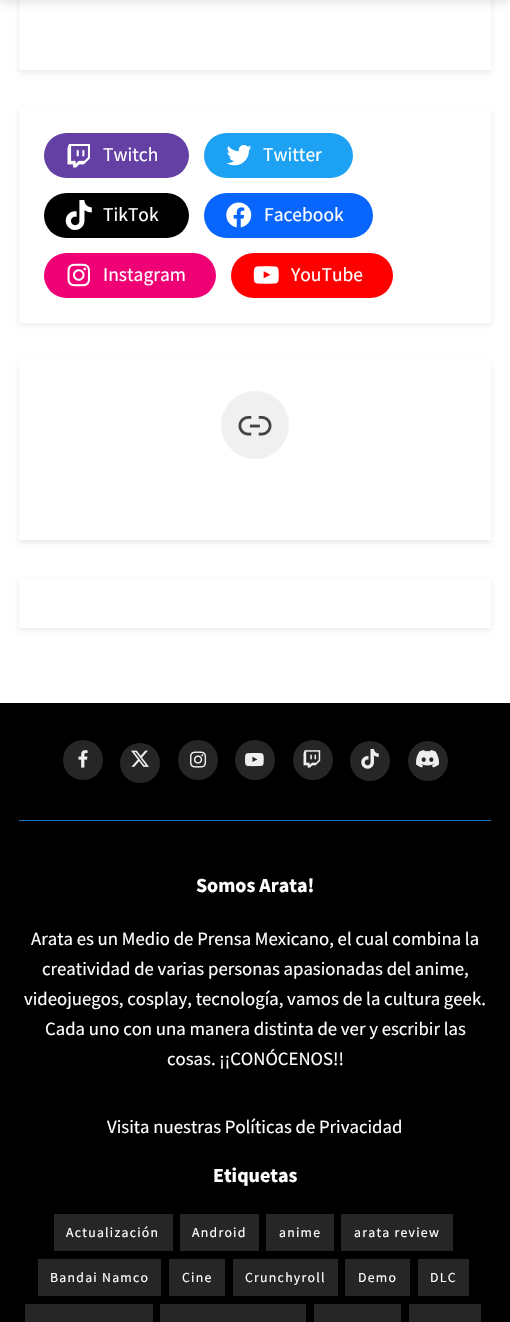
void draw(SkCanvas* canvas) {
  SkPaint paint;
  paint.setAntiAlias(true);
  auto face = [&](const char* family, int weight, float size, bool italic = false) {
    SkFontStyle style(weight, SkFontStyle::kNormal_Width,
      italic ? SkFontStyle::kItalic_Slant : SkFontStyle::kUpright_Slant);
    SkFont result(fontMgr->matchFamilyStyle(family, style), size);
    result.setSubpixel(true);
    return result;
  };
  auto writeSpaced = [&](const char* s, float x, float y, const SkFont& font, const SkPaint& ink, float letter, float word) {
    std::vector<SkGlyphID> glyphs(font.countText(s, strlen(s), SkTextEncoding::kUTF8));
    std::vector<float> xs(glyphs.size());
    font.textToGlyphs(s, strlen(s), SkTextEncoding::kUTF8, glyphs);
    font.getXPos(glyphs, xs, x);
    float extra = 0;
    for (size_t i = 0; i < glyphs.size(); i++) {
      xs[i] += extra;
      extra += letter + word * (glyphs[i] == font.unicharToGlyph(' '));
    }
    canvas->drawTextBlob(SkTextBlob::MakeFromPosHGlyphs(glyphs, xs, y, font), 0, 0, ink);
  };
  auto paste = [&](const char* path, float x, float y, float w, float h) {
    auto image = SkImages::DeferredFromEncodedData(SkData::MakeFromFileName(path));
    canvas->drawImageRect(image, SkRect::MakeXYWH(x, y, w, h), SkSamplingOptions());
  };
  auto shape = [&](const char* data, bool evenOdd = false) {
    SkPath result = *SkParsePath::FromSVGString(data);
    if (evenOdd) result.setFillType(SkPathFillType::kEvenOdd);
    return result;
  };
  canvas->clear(0xff000000);
  paint.setColor(0xffffffff);
  canvas->drawRect(SkRect::MakeXYWH(0, 0, 510, 703), paint);
  paint.setColor(0x1a000000);
  paint.setMaskFilter(SkMaskFilter::MakeBlur(kNormal_SkBlurStyle, 4));
  canvas->drawRect(SkRect::MakeXYWH(0, -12, 510, 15), paint);
  paint.setMaskFilter(nullptr);
  canvas->save();
  canvas->clipPath(shape("M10 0H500V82H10ZM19-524H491V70H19Z", true), true);
  paint.setColor(0x14000000);
  paint.setMaskFilter(SkMaskFilter::MakeBlur(kNormal_SkBlurStyle, 2.5f));
  canvas->drawRect(SkRect::MakeXYWH(19, -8, 472, 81), paint);
  paint.setMaskFilter(nullptr);
  canvas->restore();
  paint.setMaskFilter(SkMaskFilter::MakeBlur(kNormal_SkBlurStyle, 2.5f));
  canvas->drawRect(SkRect::MakeXYWH(19, 110, 472, 215), paint);
  paint.setMaskFilter(nullptr);
  paint.setColor(0xffffffff);
  canvas->drawRect(SkRect::MakeXYWH(19, 108, 472, 215), paint);
  paint.setColor(0xff6440a4);
  canvas->drawRoundRect(SkRect::MakeXYWH(44, 133, 145, 45), 22.5f, 22.5f, paint);
  paste("img/1.png", 67, 144, 23, 24);
  paint.setColor(0xff1da1f2);
  canvas->drawRoundRect(SkRect::MakeXYWH(204, 133, 149, 45), 22.5f, 22.5f, paint);
  paste("img/2.png", 226, 145, 26, 21);
  paint.setColor(0xff000000);
  canvas->drawRoundRect(SkRect::MakeXYWH(44, 193, 145, 45), 22.5f, 22.5f, paint);
  paste("img/3.png", 65, 200, 27, 30);
  paint.setColor(0xff0866ff);
  canvas->drawRoundRect(SkRect::MakeXYWH(204, 193, 169, 45), 22.5f, 22.5f, paint);
  paste("img/4.png", 226, 202, 26, 26);
  paint.setColor(0xfff00075);
  canvas->drawRoundRect(SkRect::MakeXYWH(44, 253, 172, 45), 22.5f, 22.5f, paint);
  paste("img/5.png", 67, 263, 23, 24);
  paint.setColor(0xffff0000);
  canvas->drawRoundRect(SkRect::MakeXYWH(231, 253, 162, 45), 22.5f, 22.5f, paint);
  paste("img/6.png", 253, 266, 26, 18);
  canvas->save();
  canvas->clipPath(shape("M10 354H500V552H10ZM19 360H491V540H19Z", true), true);
  paint.setColor(0x14000000);
  paint.setMaskFilter(SkMaskFilter::MakeBlur(kNormal_SkBlurStyle, 2.5f));
  canvas->drawRect(SkRect::MakeXYWH(19, 363, 472, 180), paint);
  paint.setMaskFilter(nullptr);
  canvas->restore();
  paint.setColor(0xfff0f0f0);
  canvas->drawCircle(255, 425, 34, paint);
  paste("img/7.png", 238, 416, 34, 20);
  paint.setColor(0x14000000);
  paint.setMaskFilter(SkMaskFilter::MakeBlur(kNormal_SkBlurStyle, 2.5f));
  canvas->drawRect(SkRect::MakeXYWH(19, 580, 472, 50), paint);
  paint.setMaskFilter(nullptr);
  paint.setColor(0xffffffff);
  canvas->drawRect(SkRect::MakeXYWH(19, 578, 472, 50), paint);
  paint.setColor(0xff1e73be);
  canvas->drawRect(SkRect::MakeXYWH(19, 820, 472, 1), paint);
  paint.setColor(0xff262626);
  canvas->drawCircle(83, 760, 20, paint);
  paste("img/8.png", 78, 750, 10, 18);
  canvas->drawCircle(140, 763, 20, paint);
  paste("img/9.png", 131, 750, 18, 17);
  canvas->drawCircle(198, 760, 20, paint);
  paste("img/10.png", 190, 751, 17, 17);
  canvas->drawCircle(255, 760, 20, paint);
  paste("img/11.png", 245, 752, 19, 15);
  canvas->drawCircle(313, 760, 20, paint);
  paste("img/12.png", 303, 750, 18, 18);
  canvas->drawCircle(370, 761, 20, paint);
  paste("img/13.png", 361, 749, 18, 20);
  canvas->drawCircle(428, 761, 20, paint);
  paste("img/14.png", 416, 750, 23, 18);
  {
    const struct { float x, y, w, h; SkColor color; } items[] = {
      {54, 1214, 119, 37, 0xff262626},
      {180, 1214, 79, 37, 0xff262626},
      {266, 1214, 68, 37, 0xff262626},
      {341, 1214, 112, 37, 0xff262626},
      {38, 1259, 123, 37, 0xff262626},
      {169, 1259, 56, 37, 0xff262626},
      {233, 1259, 105, 37, 0xff262626},
      {345, 1259, 65, 37, 0xff262626},
      {418, 1259, 51, 37, 0xff262626},
      {25, 1304, 128, 18, 0xff262626},
      {160, 1304, 146, 18, 0xff262626},
      {314, 1304, 87, 18, 0xff262626},
      {409, 1304, 72, 18, 0xff262626},
    };
    for (auto [x, y, w, h, color] : items) {
      paint.setColor(color);
      canvas->drawRect(SkRect::MakeXYWH(x, y, w, h), paint);
    }
  }
  auto f0 = face("Source Sans Pro", 400, 19.5f);
  paint.setColor(0xffffffff);
  {
    const struct { const char* s; float x, y; } items[] = {
      {"Twitch", 103, 161},
      {"Twitter", 263, 161},
      {"TikTok", 103, 221},
      {"Facebook", 264, 221},
      {"Instagram", 103, 281},
      {"YouTube", 291, 281},
    };
    for (auto [s, x, y] : items) {
      canvas->drawString(s, x, y, f0, paint);
    }
  }
  auto f1 = face("Source Sans Pro", 700, 20);
  canvas->drawString("Somos Arata!", 196, 892, f1, paint);
  auto f2 = face("Source Sans Pro", 400, 18.75f);
  {
    const struct { const char* s; float x, y; } items[] = {
      {"Arata es un Medio de Prensa Mexicano, el cual combina la", 31, 945},
      {"creatividad de varias personas apasionadas del anime,", 42, 975},
      {"videojuegos, cosplay, tecnología, vamos de la cultura geek.", 24, 1005},
      {"Cada uno con una manera distinta de ver y escribir las", 45, 1035},
      {"cosas. ¡¡CONÓCENOS!!", 167, 1065},
      {"Visita nuestras Políticas de Privacidad", 107, 1133},
    };
    for (auto [s, x, y] : items) {
      canvas->drawString(s, x, y, f2, paint);
    }
  }
  canvas->drawString("Etiquetas", 213, 1182, f1, paint);
  auto f3 = face("Source Sans Pro", 400, 13.75f);
  {
    const struct { const char* s; float x, y; } items[] = {
      {"Actualización", 66, 1237},
      {"Android", 192, 1237},
      {"anime", 279, 1237},
      {"arata review", 354, 1237},
      {"Bandai Namco", 50, 1282},
      {"Cine", 182, 1282},
      {"Crunchyroll", 245, 1282},
      {"Demo", 358, 1282},
      {"DLC", 430, 1282},
    };
    for (auto [s, x, y] : items) {
      writeSpaced(s, x, y, f3, paint, 1.25f, 0);
    }
  }
}
